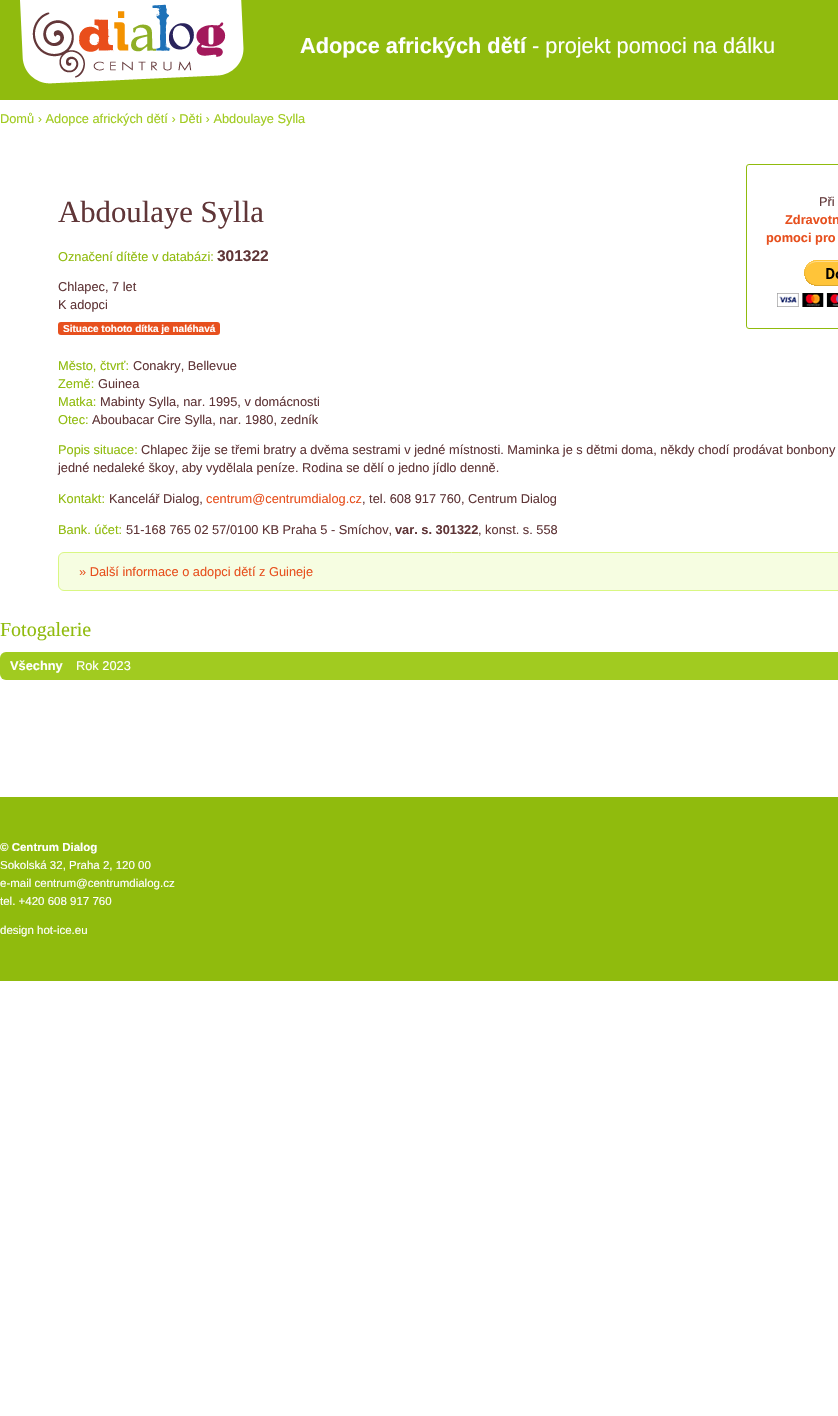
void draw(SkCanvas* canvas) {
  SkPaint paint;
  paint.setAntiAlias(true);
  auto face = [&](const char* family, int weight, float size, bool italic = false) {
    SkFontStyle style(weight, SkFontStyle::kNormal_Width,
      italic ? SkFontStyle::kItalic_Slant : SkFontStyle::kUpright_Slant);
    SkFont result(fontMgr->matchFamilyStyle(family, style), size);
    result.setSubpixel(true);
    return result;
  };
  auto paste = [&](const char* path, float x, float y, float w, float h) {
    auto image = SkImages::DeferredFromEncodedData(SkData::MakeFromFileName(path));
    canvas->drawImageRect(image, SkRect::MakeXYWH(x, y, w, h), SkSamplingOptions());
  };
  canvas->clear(0xffffffff);
  paint.setColor(0xff90bb0e);
  canvas->drawRect(SkRect::MakeXYWH(0, 0, 838, 100), paint);
  paste("img/1.png", 20, 0, 224, 84);
  paint.setStroke(true);
  paint.setStrokeWidth(1);
  paint.setColor(0xff90bb0d);
  canvas->drawRoundRect(SkRect::MakeXYWH(746.5f, 164.5f, 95, 164), 2.5f, 2.5f, paint);
  paste("img/2.png", 777, 260, 61, 47);
  paint.setStroke(false);
  paint.setColor(0xffe7501e);
  canvas->drawRoundRect(SkRect::MakeXYWH(58, 322, 162, 13), 3, 3, paint);
  paint.setColor(0xfff6fde1);
  canvas->drawRoundRect(SkRect::MakeXYWH(58.5f, 552.5f, 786, 38), 5.5f, 5.5f, paint);
  paint.setStroke(true);
  paint.setColor(0xffd9f783);
  canvas->drawRoundRect(SkRect::MakeXYWH(58.5f, 552.5f, 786, 38), 5.5f, 5.5f, paint);
  paint.setStroke(false);
  paint.setColor(0xffa1cb20);
  canvas->drawRoundRect(SkRect::MakeXYWH(0, 652, 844, 28), 6, 6, paint);
  paint.setColor(0xff90bb0d);
  canvas->drawRect(SkRect::MakeXYWH(0, 797, 838, 184), paint);
  auto f0 = face("Liberation Sans", 700, 21.75f);
  paint.setColor(0xffffffff);
  canvas->drawString("Adopce afrických dětí", 300, 53, f0, paint);
  auto f1 = face("Liberation Sans", 400, 21.75f);
  canvas->drawString("- projekt pomoci na dálku", 532, 53, f1, paint);
  auto f2 = face("Liberation Sans", 400, 12.8f);
  paint.setColor(0xffa1cb20);
  canvas->drawString("Domů › Adopce afrických dětí › Děti › Abdoulaye Sylla", 0, 123, f2, paint);
  auto f3 = face("Liberation Serif", 400, 30.75f);
  paint.setColor(0xff603638);
  canvas->drawString("Abdoulaye Sylla", 58, 222, f3, paint);
  canvas->drawString("Při", 819, 206, f2, paint);
  auto f4 = face("Liberation Sans", 700, 12.8f);
  paint.setColor(0xffe7501e);
  canvas->drawString("Zdravotn", 785, 224, f4, paint);
  canvas->drawString("pomoci pro", 766, 242, f4, paint);
  paint.setColor(0xff90bb0d);
  canvas->drawString("Označení dítěte v databázi:", 58, 261, f2, paint);
  auto f5 = face("Liberation Sans", 700, 15.5f);
  paint.setColor(0xff603638);
  canvas->drawString("301322", 217, 261, f5, paint);
  canvas->drawString("Chlapec, 7 let", 58, 291, f2, paint);
  canvas->drawString("K adopci", 58, 309, f2, paint);
  auto f6 = face("Liberation Sans", 700, 10);
  paint.setColor(0xffffffff);
  canvas->drawString("Situace tohoto dítka je naléhavá", 63, 332, f6, paint);
  paint.setColor(0xff90bb0d);
  canvas->drawString("Město, čtvrť:", 58, 370, f2, paint);
  paint.setColor(0xff603638);
  canvas->drawString("Conakry, Bellevue", 133, 370, f2, paint);
  paint.setColor(0xff90bb0d);
  canvas->drawString("Země:", 58, 388, f2, paint);
  paint.setColor(0xff603638);
  canvas->drawString("Guinea", 98, 388, f2, paint);
  paint.setColor(0xff90bb0d);
  canvas->drawString("Matka:", 58, 406, f2, paint);
  paint.setColor(0xff603638);
  canvas->drawString("Mabinty Sylla, nar. 1995, v domácnosti", 100, 406, f2, paint);
  paint.setColor(0xff90bb0d);
  canvas->drawString("Otec:", 58, 424, f2, paint);
  paint.setColor(0xff603638);
  canvas->drawString("Aboubacar Cire Sylla, nar. 1980, zedník", 92, 424, f2, paint);
  paint.setColor(0xff90bb0d);
  canvas->drawString("Popis situace:", 58, 454, f2, paint);
  paint.setColor(0xff603638);
  canvas->drawString("Chlapec žije se třemi bratry a dvěma sestrami v jedné místnosti. Maminka je s dětmi doma, někdy chodí prodávat bonbony", 141, 454, f2, paint);
  canvas->drawString("jedné nedaleké škoy, aby vydělala peníze. Rodina se dělí o jedno jídlo denně.", 58, 472, f2, paint);
  paint.setColor(0xff90bb0d);
  canvas->drawString("Kontakt:", 58, 503, f2, paint);
  paint.setColor(0xff603638);
  canvas->drawString("Kancelář Dialog,", 109, 503, f2, paint);
  paint.setColor(0xffe7501e);
  canvas->drawString("centrum@centrumdialog.cz", 206, 503, f2, paint);
  paint.setColor(0xff603638);
  canvas->drawString(", tel. 608 917 760, Centrum Dialog", 362, 503, f2, paint);
  paint.setColor(0xff90bb0d);
  canvas->drawString("Bank. účet:", 58, 534, f2, paint);
  paint.setColor(0xff603638);
  canvas->drawString("51-168 765 02 57/0100 KB Praha 5 - Smíchov,", 126, 534, f2, paint);
  canvas->drawString("var. s. 301322", 395, 534, f4, paint);
  canvas->drawString(", konst. s. 558", 478, 534, f2, paint);
  paint.setColor(0xffe7501e);
  canvas->drawString("» Další informace o adopci dětí z Guineje", 79, 576, f2, paint);
  auto f7 = face("Liberation Serif", 400, 20);
  paint.setColor(0xff90bb0d);
  canvas->drawString("Fotogalerie", 0, 636, f7, paint);
  paint.setColor(0xffffffff);
  canvas->drawString("Všechny", 10, 670, f4, paint);
  canvas->drawString("Rok 2023", 76, 670, f2, paint);
  auto f8 = face("Liberation Sans", 700, 11.5f);
  canvas->drawString("© Centrum Dialog", 0, 851, f8, paint);
  auto f9 = face("Liberation Sans", 400, 11.5f);
  {
    const struct { const char* s; float x, y; } items[] = {
      {"Sokolská 32, Praha 2, 120 00", 0, 869},
      {"e-mail centrum@centrumdialog.cz", 0, 887},
      {"tel. +420 608 917 760", 0, 905},
      {"design hot-ice.eu", 0, 934},
    };
    for (auto [s, x, y] : items) {
      canvas->drawString(s, x, y, f9, paint);
    }
  }
}
